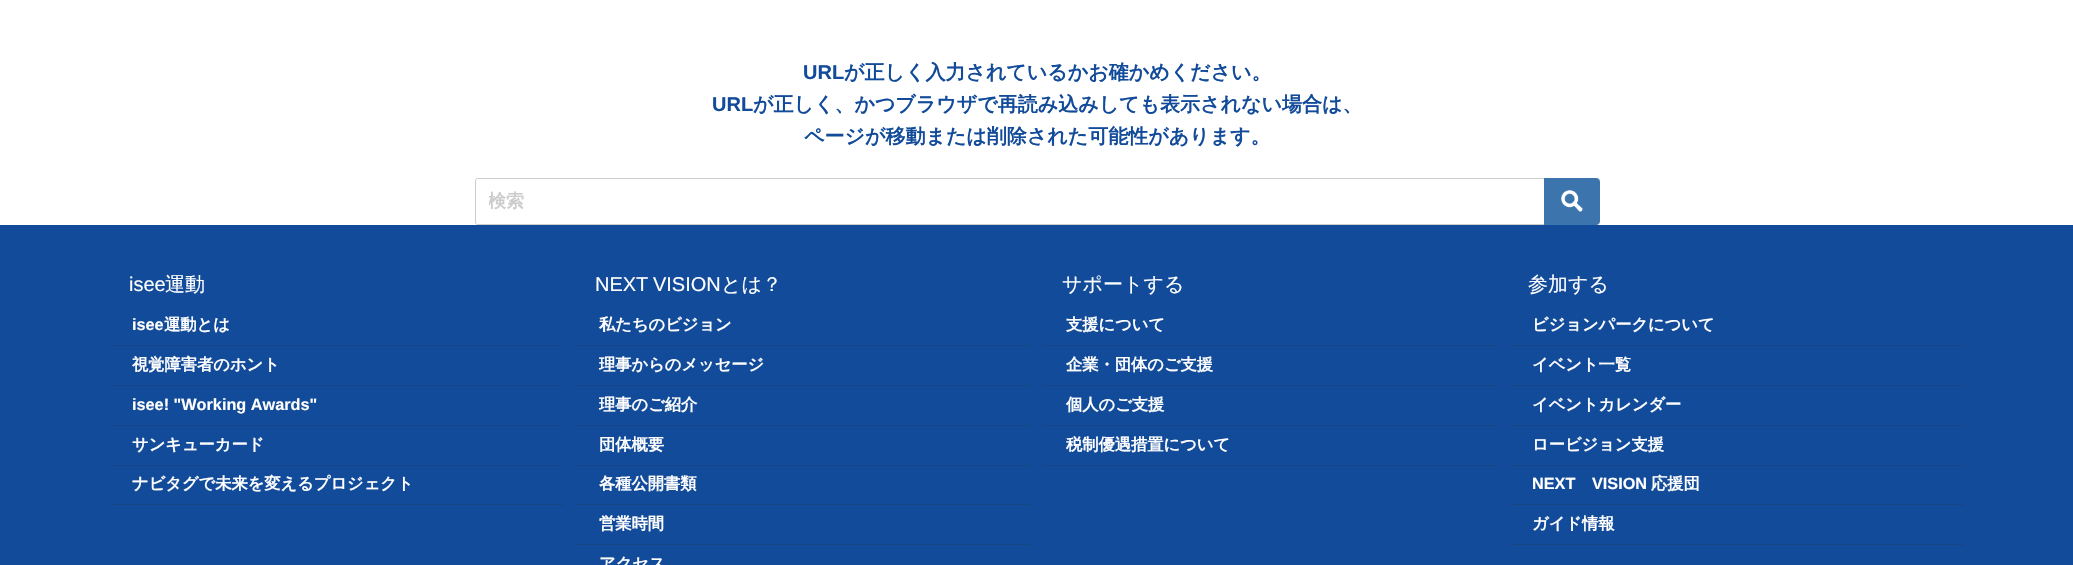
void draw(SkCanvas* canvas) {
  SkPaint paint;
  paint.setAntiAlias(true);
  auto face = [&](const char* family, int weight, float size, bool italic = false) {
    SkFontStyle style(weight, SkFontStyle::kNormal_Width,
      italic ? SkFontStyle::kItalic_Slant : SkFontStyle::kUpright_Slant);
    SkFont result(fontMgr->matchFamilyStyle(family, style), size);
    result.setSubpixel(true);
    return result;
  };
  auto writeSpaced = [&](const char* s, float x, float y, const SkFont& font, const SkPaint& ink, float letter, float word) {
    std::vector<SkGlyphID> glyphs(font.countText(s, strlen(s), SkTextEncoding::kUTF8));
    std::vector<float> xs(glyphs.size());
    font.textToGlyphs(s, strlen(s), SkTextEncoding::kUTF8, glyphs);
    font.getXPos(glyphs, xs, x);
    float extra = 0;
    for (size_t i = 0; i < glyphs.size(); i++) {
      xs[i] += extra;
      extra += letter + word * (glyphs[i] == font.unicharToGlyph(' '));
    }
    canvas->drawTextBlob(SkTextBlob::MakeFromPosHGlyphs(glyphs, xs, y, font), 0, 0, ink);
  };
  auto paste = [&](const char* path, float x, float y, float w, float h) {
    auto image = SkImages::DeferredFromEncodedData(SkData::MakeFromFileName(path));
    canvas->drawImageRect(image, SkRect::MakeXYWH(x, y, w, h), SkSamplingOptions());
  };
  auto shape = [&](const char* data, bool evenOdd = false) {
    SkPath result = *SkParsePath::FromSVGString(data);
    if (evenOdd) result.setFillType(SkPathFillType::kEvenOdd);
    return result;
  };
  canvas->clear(0xffffffff);
  paint.setStroke(true);
  paint.setStrokeWidth(1);
  paint.setColor(0xffcccccc);
  canvas->drawRoundRect(SkRect::MakeXYWH(475.5f, 178.5f, 1124, 46), 2, 2, paint);
  paint.setStroke(false);
  paint.setColor(0xff3c74ad);
  canvas->drawPath(shape("M1544 178H1596C1598 178 1600 180 1600 182V221C1600 223 1598 225 1596 225H1544Z"), paint);
  paste("img/1.png", 1561, 190, 22, 22);
  {
    const struct { float x, y, w, h; SkColor color; } items[] = {
      {0, 225, 2073, 340, 0xff124b9a},
      {110, 345, 454, 1, 0xff184685},
      {110, 385, 454, 1, 0xff184685},
      {110, 425, 454, 1, 0xff184685},
      {110, 465, 454, 1, 0xff184685},
      {110, 504, 454, 1, 0xff184685},
      {576, 345, 454, 1, 0xff184685},
      {576, 385, 454, 1, 0xff184685},
      {576, 425, 454, 1, 0xff184685},
      {576, 465, 454, 1, 0xff184685},
      {576, 504, 454, 1, 0xff184685},
      {576, 544, 454, 1, 0xff184685},
      {1043, 345, 455, 1, 0xff184685},
      {1043, 385, 455, 1, 0xff184685},
      {1043, 425, 455, 1, 0xff184685},
      {1043, 465, 455, 1, 0xff184685},
      {1510, 345, 454, 1, 0xff184685},
      {1510, 385, 454, 1, 0xff184685},
      {1510, 425, 454, 1, 0xff184685},
      {1510, 465, 454, 1, 0xff184685},
      {1510, 504, 454, 1, 0xff184685},
      {1510, 544, 454, 1, 0xff184685},
    };
    for (auto [x, y, w, h, color] : items) {
      paint.setColor(color);
      canvas->drawRect(SkRect::MakeXYWH(x, y, w, h), paint);
    }
  }
  auto f0 = face("Liberation Sans", 700, 20);
  paint.setColor(0xff124b9a);
  canvas->drawString("URL", 803, 79, f0, paint);
  auto f1 = face("WenQuanYi Zen Hei", 700, 20);
  canvas->drawString("が正しく入力されているかお確かめください。", 844, 79, f1, paint);
  canvas->drawString("URL", 712, 111, f0, paint);
  canvas->drawString("が正しく、かつブラウザで再読み込みしても表示されない場合は、", 753, 111, f1, paint);
  canvas->drawString("ページが移動または削除された可能性があります。", 804, 143, f1, paint);
  canvas->save();
  canvas->clipRect(SkRect::MakeXYWH(489, 191, 1047, 23));
  auto f2 = face("WenQuanYi Zen Hei", 700, 18);
  paint.setColor(0xffcccccc);
  canvas->drawString("検索", 488, 207, f2, paint);
  canvas->restore();
  auto f3 = face("Liberation Sans", 400, 20);
  paint.setColor(0xffffffff);
  canvas->drawString("isee", 129, 291, f3, paint);
  auto f4 = face("WenQuanYi Zen Hei", 500, 20);
  canvas->drawString("運動", 165, 291, f4, paint);
  auto f5 = face("Liberation Sans", 700, 16.25f);
  canvas->drawString("isee", 132, 330, f5, paint);
  auto f6 = face("WenQuanYi Zen Hei", 700, 16.25f);
  canvas->drawString("運動とは", 164, 330, f6, paint);
  canvas->drawString("視覚障害者のホント", 132, 370, f6, paint);
  canvas->drawString("isee! \"Working Awards\"", 132, 410, f5, paint);
  canvas->drawString("サンキューカード", 132, 450, f6, paint);
  canvas->drawString("ナビタグで未来を変えるプロジェクト", 132, 489, f6, paint);
  writeSpaced("NEXT VISION", 595, 291, f3, paint, 0, -1);
  canvas->drawString("とは？", 721, 291, f4, paint);
  {
    const struct { const char* s; float x, y; } items[] = {
      {"私たちのビジョン", 599, 330},
      {"理事からのメッセージ", 599, 370},
      {"理事のご紹介", 599, 410},
      {"団体概要", 599, 450},
      {"各種公開書類", 599, 489},
      {"営業時間", 599, 529},
      {"アクセス", 599, 569},
    };
    for (auto [s, x, y] : items) {
      canvas->drawString(s, x, y, f6, paint);
    }
  }
  canvas->drawString("サポートする", 1062, 291, f4, paint);
  {
    const struct { const char* s; float x, y; } items[] = {
      {"支援について", 1066, 330},
      {"企業・団体のご支援", 1066, 370},
      {"個人のご支援", 1066, 410},
      {"税制優遇措置について", 1066, 450},
    };
    for (auto [s, x, y] : items) {
      canvas->drawString(s, x, y, f6, paint);
    }
  }
  canvas->drawString("参加する", 1528, 291, f4, paint);
  {
    const struct { const char* s; float x, y; } items[] = {
      {"ビジョンパークについて", 1532, 330},
      {"イベント一覧", 1532, 370},
      {"イベントカレンダー", 1532, 410},
      {"ロービジョン支援", 1532, 450},
    };
    for (auto [s, x, y] : items) {
      canvas->drawString(s, x, y, f6, paint);
    }
  }
  canvas->drawString("NEXT", 1532, 489, f5, paint);
  canvas->drawString("VISION", 1592, 489, f5, paint);
  canvas->drawString("応援団", 1651, 489, f6, paint);
  canvas->drawString("ガイド情報", 1532, 529, f6, paint);
}
